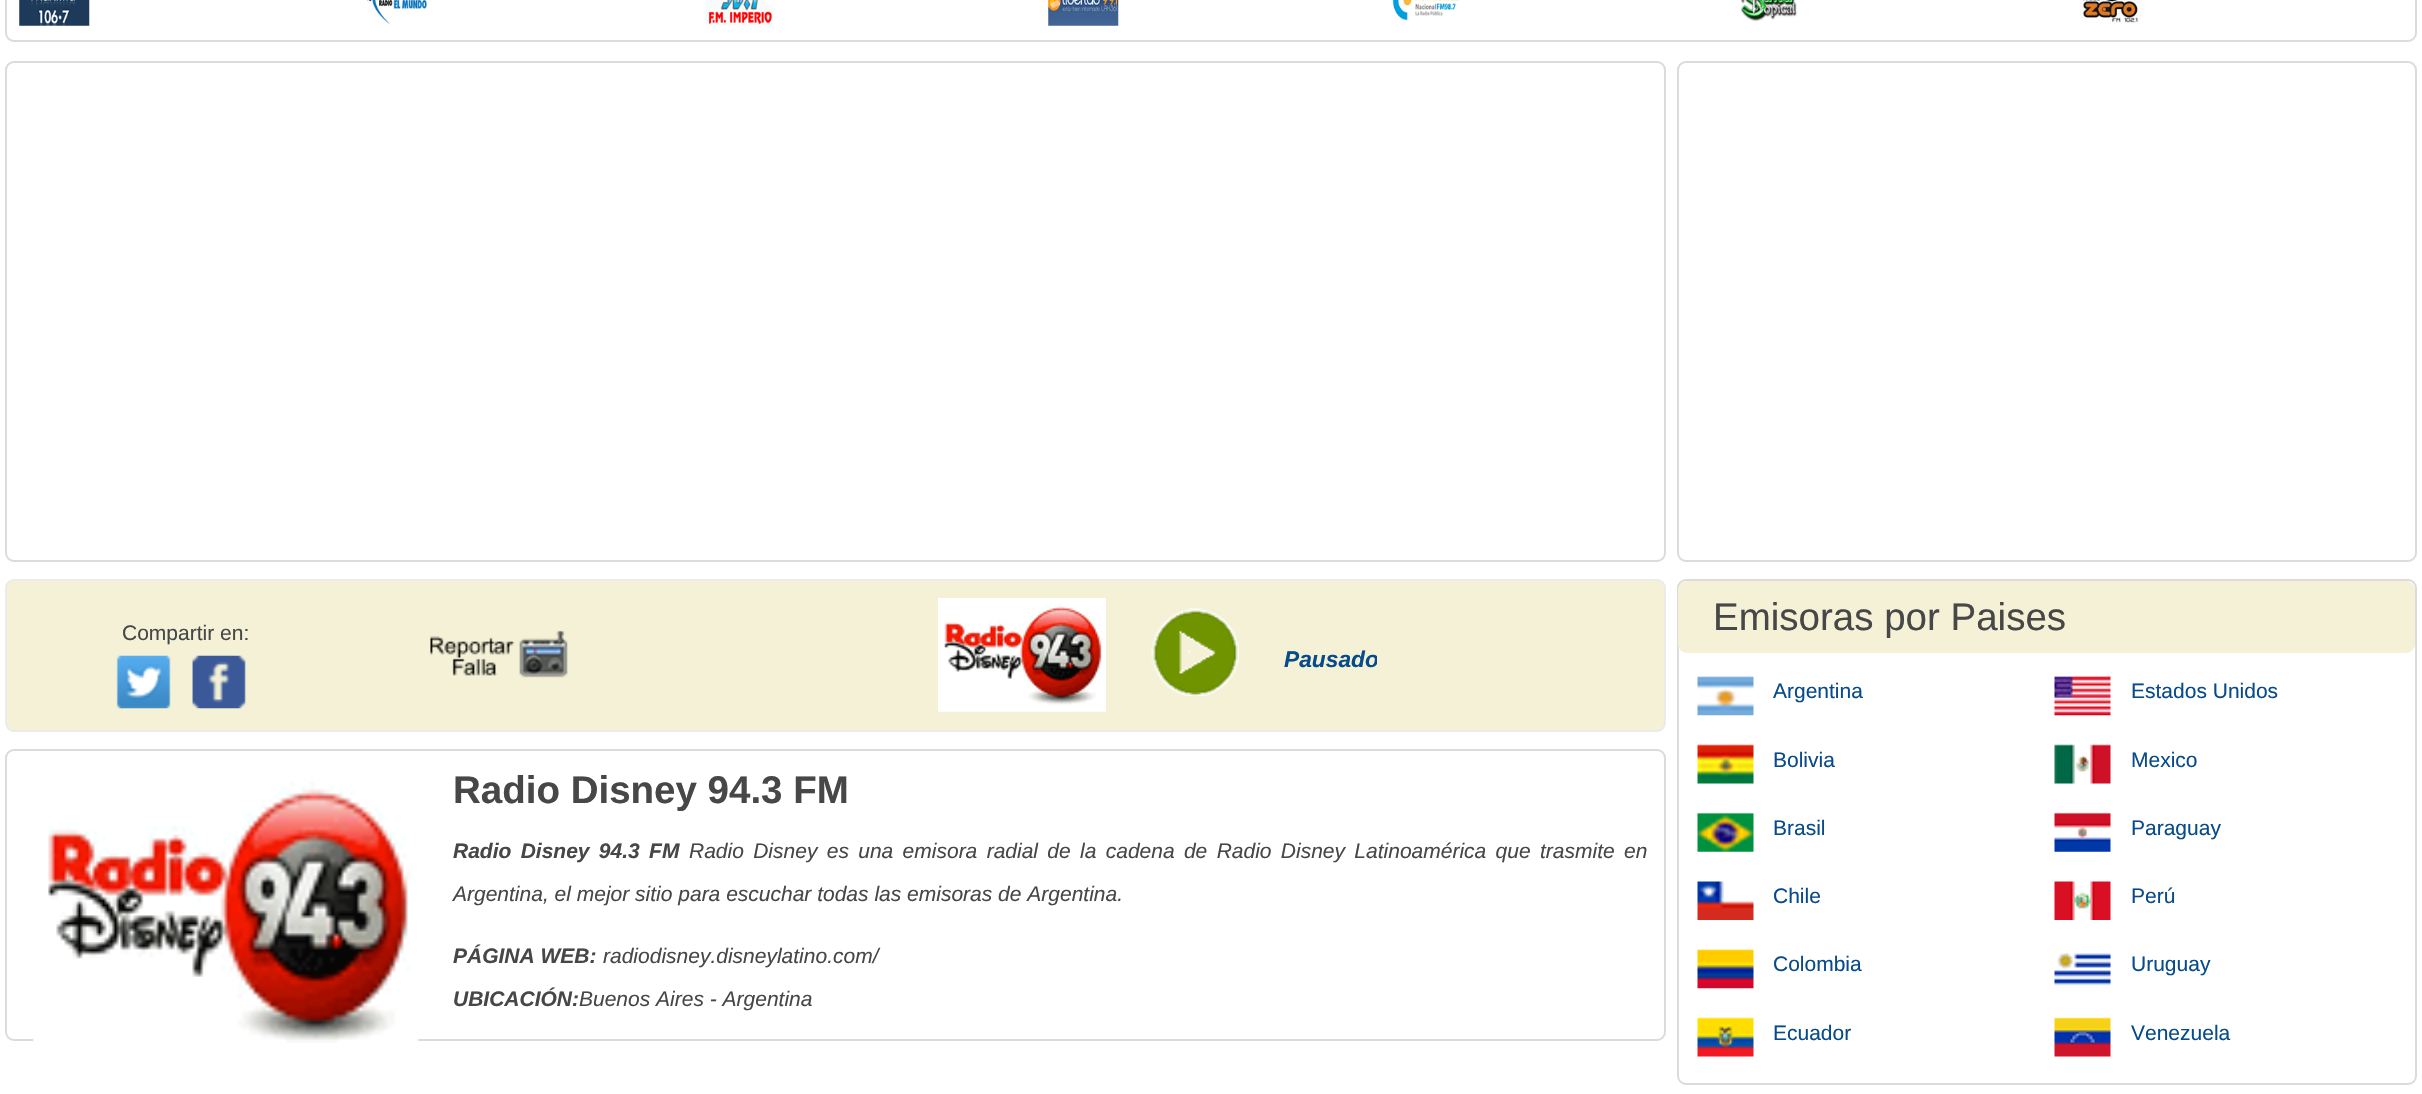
void draw(SkCanvas* canvas) {
  SkPaint paint;
  paint.setAntiAlias(true);
  auto face = [&](const char* family, int weight, float size, bool italic = false) {
    SkFontStyle style(weight, SkFontStyle::kNormal_Width,
      italic ? SkFontStyle::kItalic_Slant : SkFontStyle::kUpright_Slant);
    SkFont result(fontMgr->matchFamilyStyle(family, style), size);
    result.setSubpixel(true);
    return result;
  };
  auto writeSpaced = [&](const char* s, float x, float y, const SkFont& font, const SkPaint& ink, float letter, float word) {
    std::vector<SkGlyphID> glyphs(font.countText(s, strlen(s), SkTextEncoding::kUTF8));
    std::vector<float> xs(glyphs.size());
    font.textToGlyphs(s, strlen(s), SkTextEncoding::kUTF8, glyphs);
    font.getXPos(glyphs, xs, x);
    float extra = 0;
    for (size_t i = 0; i < glyphs.size(); i++) {
      xs[i] += extra;
      extra += letter + word * (glyphs[i] == font.unicharToGlyph(' '));
    }
    canvas->drawTextBlob(SkTextBlob::MakeFromPosHGlyphs(glyphs, xs, y, font), 0, 0, ink);
  };
  auto paste = [&](const char* path, float x, float y, float w, float h) {
    auto image = SkImages::DeferredFromEncodedData(SkData::MakeFromFileName(path));
    canvas->drawImageRect(image, SkRect::MakeXYWH(x, y, w, h), SkSamplingOptions());
  };
  canvas->clear(0xffffffff);
  paint.setStroke(true);
  paint.setStrokeWidth(2);
  paint.setColor(0xffdbdbdb);
  canvas->drawRoundRect(SkRect::MakeXYWH(6, -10, 2410, 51), 8, 8, paint);
  paste("img/1.png", 19, 0, 71, 26);
  paste("img/2.png", 367, 0, 60, 25);
  paste("img/3.png", 705, 0, 68, 26);
  paste("img/4.png", 1048, 0, 71, 26);
  paste("img/5.png", 1392, 0, 68, 21);
  paste("img/6.png", 1741, 0, 56, 22);
  paste("img/7.png", 2080, 0, 61, 24);
  canvas->drawRoundRect(SkRect::MakeXYWH(6, 62, 1659, 499), 8, 8, paint);
  paint.setStroke(false);
  paint.setColor(0xfff4f1d7);
  canvas->drawRoundRect(SkRect::MakeXYWH(6, 580, 1659, 151), 8, 8, paint);
  paint.setStroke(true);
  paint.setColor(0xffebebeb);
  canvas->drawRoundRect(SkRect::MakeXYWH(6, 580, 1659, 151), 8, 8, paint);
  paste("img/8.png", 116, 655, 55, 54);
  paste("img/9.png", 192, 655, 54, 54);
  paste("img/10.png", 430, 630, 138, 48);
  paste("img/11.png", 938, 598, 168, 114);
  paste("img/12.png", 1151, 608, 88, 88);
  paint.setColor(0xffdbdbdb);
  canvas->drawRoundRect(SkRect::MakeXYWH(6, 750, 1659, 290), 8, 8, paint);
  paste("img/13.png", 33, 781, 386, 262);
  canvas->drawRoundRect(SkRect::MakeXYWH(1678, 62, 738, 499), 8, 8, paint);
  canvas->drawRoundRect(SkRect::MakeXYWH(1678, 580, 738, 504), 8, 8, paint);
  paint.setStroke(false);
  paint.setColor(0xfff4f1d7);
  canvas->drawRoundRect(SkRect::MakeXYWH(1678, 581, 737, 72), 9, 9, paint);
  paste("img/14.png", 1697, 676, 57, 40);
  paste("img/15.png", 1697, 744, 57, 40);
  paste("img/16.png", 1697, 812, 57, 40);
  paste("img/17.png", 1697, 881, 57, 39);
  paste("img/18.png", 1697, 949, 57, 40);
  paste("img/19.png", 1697, 1017, 57, 40);
  paste("img/20.png", 2054, 676, 57, 40);
  paste("img/21.png", 2054, 744, 57, 40);
  paste("img/22.png", 2054, 812, 57, 40);
  paste("img/23.png", 2054, 881, 57, 39);
  paste("img/24.png", 2054, 953, 57, 33);
  paste("img/25.png", 2054, 1017, 57, 40);
  auto f0 = face("Liberation Sans", 400, 21);
  paint.setColor(0xff474747);
  canvas->drawString("Compartir en:", 122, 640, f0, paint);
  canvas->save();
  canvas->clipRect(SkRect::MakeXYWH(1150, 599, 227, 113));
  auto f1 = face("Liberation Sans", 700, 22.75f, true);
  paint.setColor(0xff084b8a);
  canvas->drawString("Pausado", 1284, 667, f1, paint);
  canvas->restore();
  auto f2 = face("Liberation Sans", 700, 38.5f);
  paint.setColor(0xff474747);
  canvas->drawString("Radio Disney 94.3 FM", 453, 803, f2, paint);
  auto f3 = face("Liberation Sans", 700, 21, true);
  writeSpaced("Radio Disney 94.3 FM", 453, 858, f3, paint, 0, 3.5f);
  auto f4 = face("Liberation Sans", 400, 21, true);
  writeSpaced("Radio Disney es una emisora radial de la cadena de Radio Disney Latinoamérica que trasmite en", 689, 858, f4, paint, 0, 3.5f);
  canvas->drawString("Argentina, el mejor sitio para escuchar todas las emisoras de Argentina.", 453, 901, f4, paint);
  canvas->drawString("PÁGINA WEB:", 453, 963, f3, paint);
  canvas->drawString("radiodisney.disneylatino.com/", 603, 963, f4, paint);
  canvas->drawString("UBICACIÓN:", 453, 1006, f3, paint);
  canvas->drawString("Buenos Aires - Argentina", 579, 1006, f4, paint);
  auto f5 = face("Liberation Sans", 400, 38.5f);
  canvas->drawString("Emisoras por Paises", 1713, 630, f5, paint);
  paint.setColor(0xff084b8a);
  {
    const struct { const char* s; float x, y; } items[] = {
      {"Argentina", 1773, 698},
      {"Bolivia", 1773, 767},
      {"Brasil", 1773, 835},
      {"Chile", 1773, 903},
      {"Colombia", 1773, 971},
      {"Ecuador", 1773, 1040},
      {"Estados Unidos", 2131, 698},
      {"Mexico", 2131, 767},
      {"Paraguay", 2131, 835},
      {"Perú", 2131, 903},
      {"Uruguay", 2131, 971},
      {"Venezuela", 2131, 1040},
    };
    for (auto [s, x, y] : items) {
      canvas->drawString(s, x, y, f0, paint);
    }
  }
}
